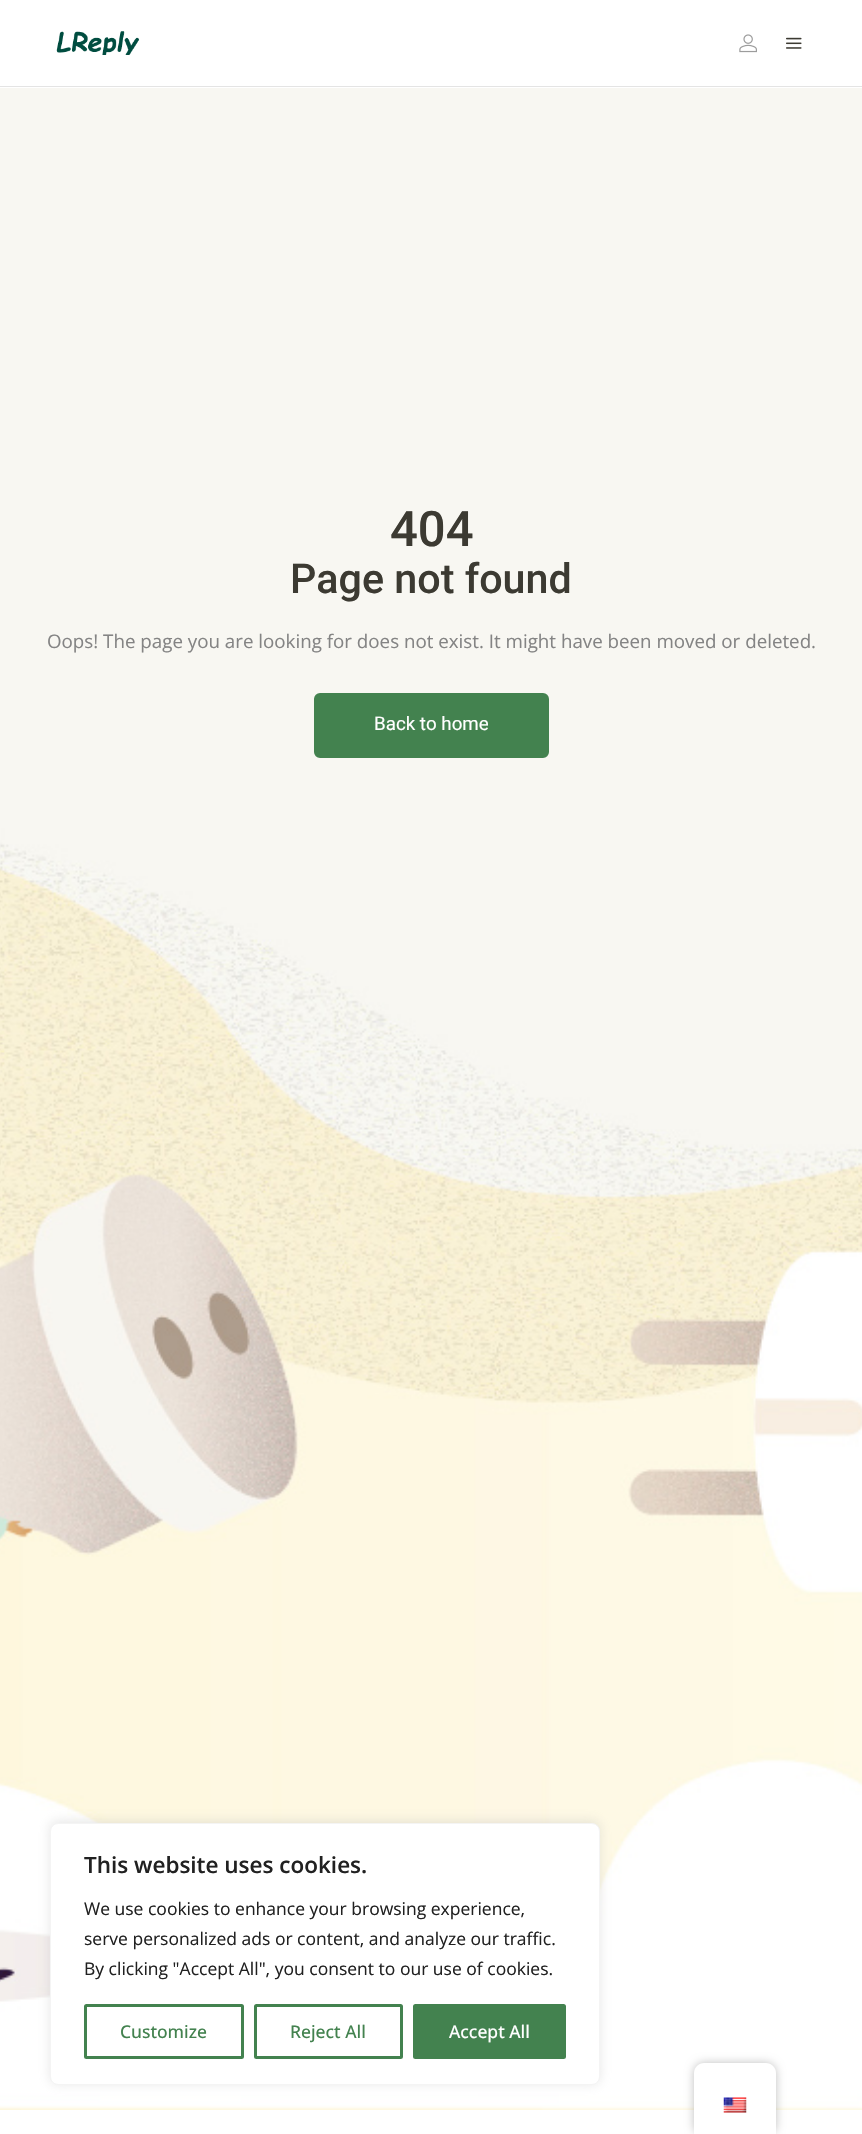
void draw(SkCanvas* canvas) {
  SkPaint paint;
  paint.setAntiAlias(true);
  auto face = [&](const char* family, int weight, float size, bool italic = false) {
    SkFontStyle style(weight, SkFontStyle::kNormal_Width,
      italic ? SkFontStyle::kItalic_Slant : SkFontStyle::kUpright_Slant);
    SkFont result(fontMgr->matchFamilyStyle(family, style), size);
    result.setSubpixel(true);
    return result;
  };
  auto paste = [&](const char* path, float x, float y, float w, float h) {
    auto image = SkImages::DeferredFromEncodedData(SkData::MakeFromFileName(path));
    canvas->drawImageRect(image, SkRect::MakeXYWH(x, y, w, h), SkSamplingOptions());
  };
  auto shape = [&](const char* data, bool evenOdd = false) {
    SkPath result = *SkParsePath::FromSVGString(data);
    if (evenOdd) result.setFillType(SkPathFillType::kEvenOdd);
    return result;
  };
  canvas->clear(0xffffffff);
  paint.setColor(0xffe4e4e4);
  canvas->drawRect(SkRect::MakeXYWH(0, 86, 862, 1), paint);
  paste("img/1.png", 56, 31, 84, 24);
  paste("img/2.png", 739, 34, 18, 19);
  paste("img/3.png", 786, 37, 16, 12);
  paste("img/4.png", 0, 88, 862, 2022);
  paint.setColor(0xff43824f);
  canvas->drawRoundRect(SkRect::MakeXYWH(315.5f, 694.5f, 232, 62), 4.5f, 4.5f, paint);
  paint.setStroke(true);
  paint.setStrokeWidth(3);
  canvas->drawRoundRect(SkRect::MakeXYWH(315.5f, 694.5f, 232, 62), 4.5f, 4.5f, paint);
  paint.setStroke(false);
  paint.setColor(0x4dacabab);
  paint.setMaskFilter(SkMaskFilter::MakeBlur(kNormal_SkBlurStyle, 6));
  canvas->drawRoundRect(SkRect::MakeXYWH(50, 1821, 550, 263), 8, 8, paint);
  paint.setMaskFilter(nullptr);
  paint.setColor(0xffffffff);
  canvas->drawRoundRect(SkRect::MakeXYWH(50.5f, 1823.5f, 549, 261), 7.5f, 7.5f, paint);
  paint.setStroke(true);
  paint.setStrokeWidth(1);
  paint.setColor(0xfff4f4f4);
  canvas->drawRoundRect(SkRect::MakeXYWH(50.5f, 1823.5f, 549, 261), 7.5f, 7.5f, paint);
  paint.setStrokeWidth(3);
  paint.setColor(0xff43824f);
  canvas->drawRoundRect(SkRect::MakeXYWH(85.5f, 2005.5f, 157, 52), 1, 1, paint);
  canvas->drawRoundRect(SkRect::MakeXYWH(255.5f, 2005.5f, 146, 52), 1, 1, paint);
  paint.setStroke(false);
  canvas->drawRoundRect(SkRect::MakeXYWH(414.5f, 2005.5f, 150, 52), 1, 1, paint);
  paint.setStroke(true);
  canvas->drawRoundRect(SkRect::MakeXYWH(414.5f, 2005.5f, 150, 52), 1, 1, paint);
  paint.setStroke(false);
  paint.setColor(0x40000000);
  paint.setMaskFilter(SkMaskFilter::MakeBlur(kNormal_SkBlurStyle, 5));
  canvas->drawRoundRect(SkRect::MakeXYWH(694, 2063, 82, 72), 10, 10, paint);
  paint.setMaskFilter(nullptr);
  paint.setColor(0xffffffff);
  canvas->drawPath(shape("M704 2063H766C771.5 2063 776 2067.5 776 2073V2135H694V2073C694 2067.5 698.5 2063 704 2063Z"), paint);
  paste("img/5.png", 723, 2097, 24, 16);
  auto f0 = face("Roboto", 500, 49);
  paint.setColor(0xff3c3a32);
  canvas->drawString("404", 390, 546, f0, paint);
  auto f1 = face("Roboto", 500, 41.25f);
  canvas->drawString("Page not found", 290, 593, f1, paint);
  auto f2 = face("Open Sans", 400, 18.75f);
  paint.setColor(0xff848484);
  canvas->drawString("Oops! The page you are looking for does not exist. It might have been moved or deleted.", 47, 648, f2, paint);
  auto f3 = face("Roboto", 400, 18.75f);
  paint.setColor(0xffffffff);
  canvas->drawString("Back to home", 374, 730, f3, paint);
  auto f4 = face("Open Sans", 600, 22.5f);
  paint.setColor(0xff212121);
  canvas->drawString("This website uses cookies.", 84, 1873, f4, paint);
  auto f5 = face("Open Sans", 400, 17.5f);
  {
    const struct { const char* s; float x, y; } items[] = {
      {"We use cookies to enhance your browsing experience,", 84, 1915},
      {"serve personalized ads or content, and analyze our traffic.", 84, 1945},
      {"By clicking \"Accept All\", you consent to our use of cookies.", 84, 1975},
    };
    for (auto [s, x, y] : items) {
      canvas->drawString(s, x, y, f5, paint);
    }
  }
  auto f6 = face("Open Sans", 500, 17.5f);
  paint.setColor(0xff43824f);
  canvas->drawString("Customize", 120, 2038, f6, paint);
  canvas->drawString("Reject All", 290, 2038, f6, paint);
  paint.setColor(0xffffffff);
  canvas->drawString("Accept All", 449, 2038, f6, paint);
}
